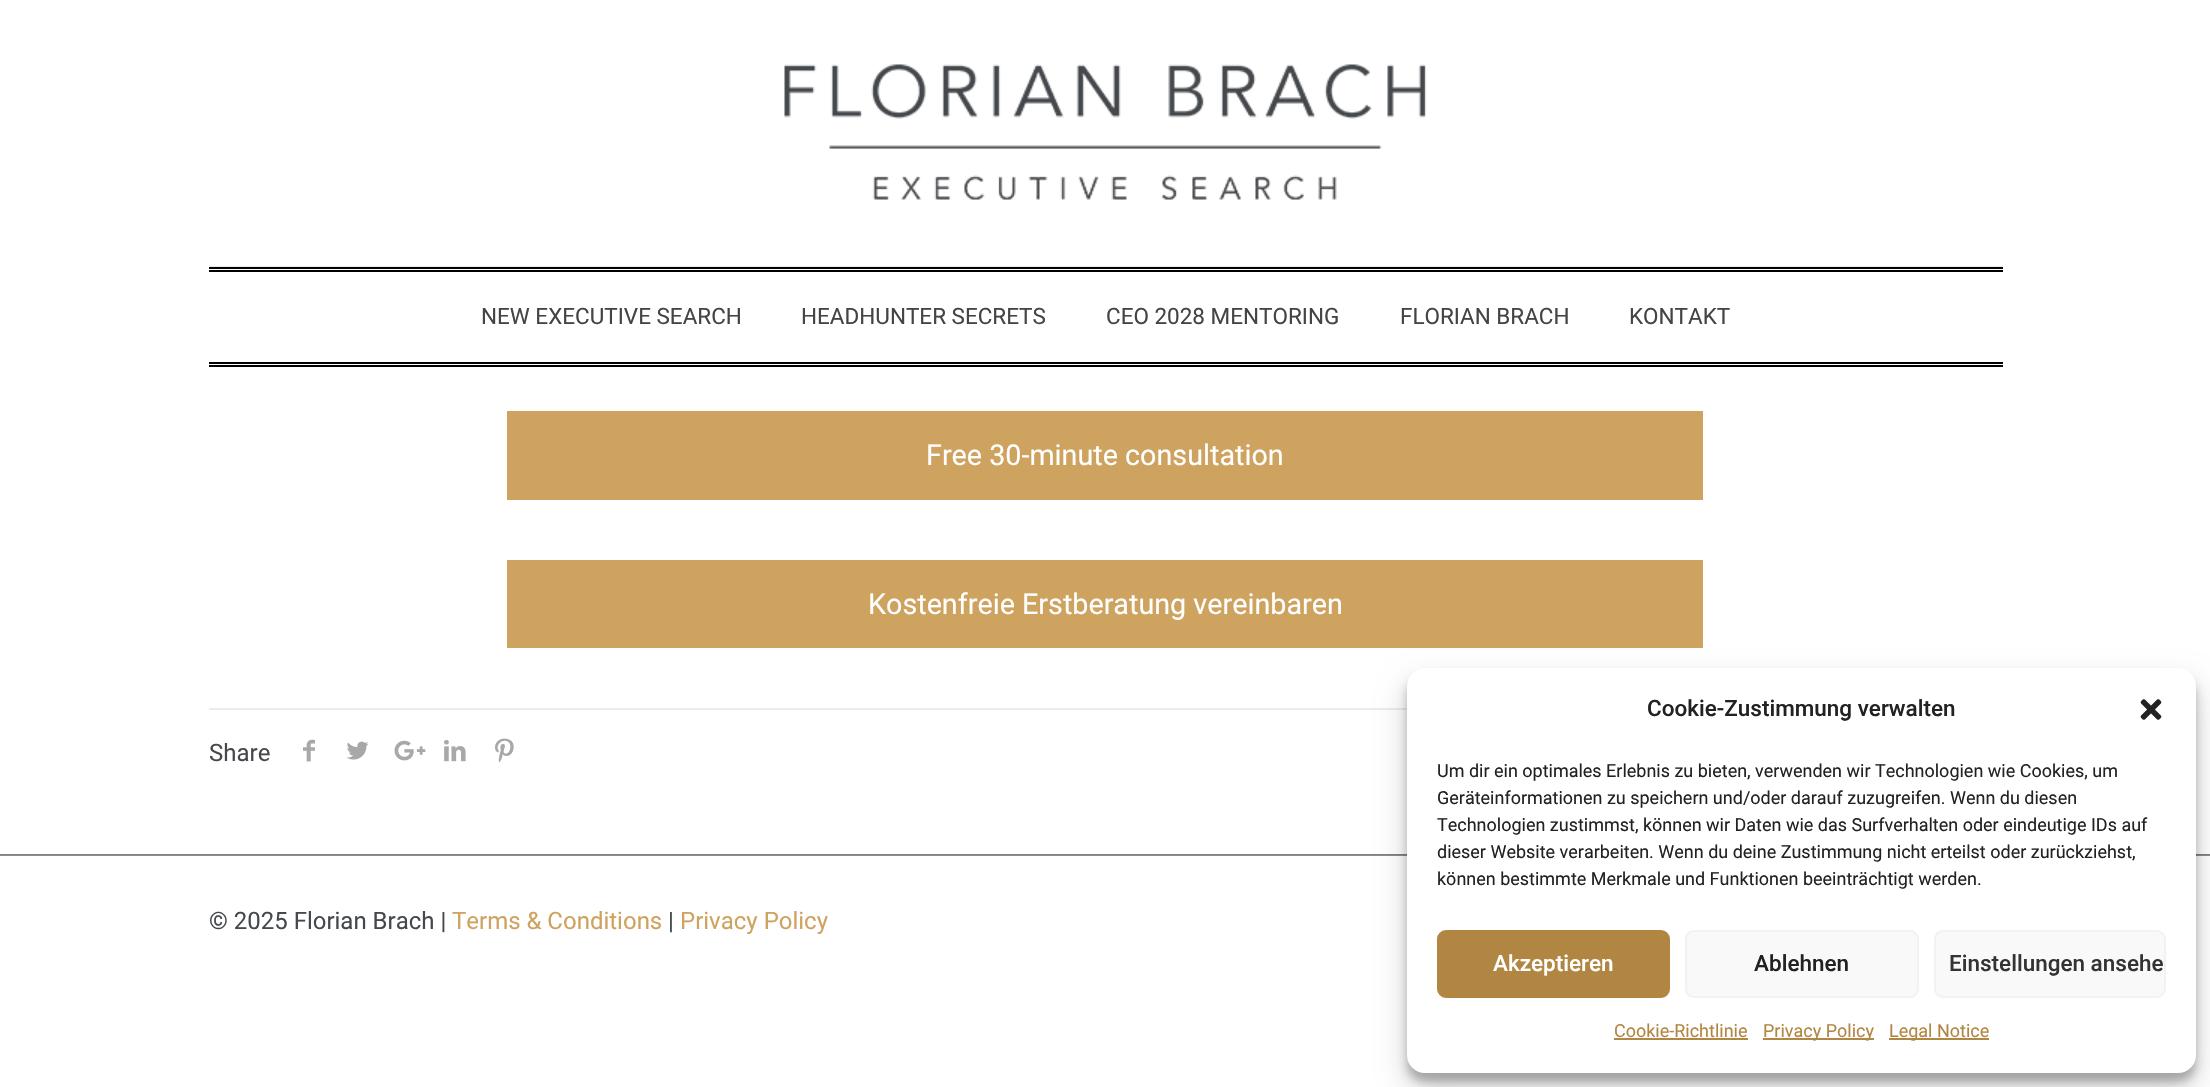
void draw(SkCanvas* canvas) {
  SkPaint paint;
  paint.setAntiAlias(true);
  auto face = [&](const char* family, int weight, float size, bool italic = false) {
    SkFontStyle style(weight, SkFontStyle::kNormal_Width,
      italic ? SkFontStyle::kItalic_Slant : SkFontStyle::kUpright_Slant);
    SkFont result(fontMgr->matchFamilyStyle(family, style), size);
    result.setSubpixel(true);
    return result;
  };
  auto paste = [&](const char* path, float x, float y, float w, float h) {
    auto image = SkImages::DeferredFromEncodedData(SkData::MakeFromFileName(path));
    canvas->drawImageRect(image, SkRect::MakeXYWH(x, y, w, h), SkSamplingOptions());
  };
  canvas->clear(0xffffffff);
  paint.setColor(0xffebebeb);
  canvas->drawRect(SkRect::MakeXYWH(209, 266, 1794, 1), paint);
  paste("img/1.png", 784, 64, 642, 136);
  {
    const struct { float x, y, w, h; SkColor color; } items[] = {
      {209, 267, 1794, 2, 0xff000000},
      {209, 270, 1794, 2, 0xff000000},
      {209, 362, 1794, 2, 0xff000000},
      {209, 365, 1794, 2, 0xff000000},
      {507, 411, 1196, 89, 0xffcea35f},
      {507, 560, 1196, 88, 0xffcea35f},
      {209, 708, 1198, 2, 0xffebebeb},
    };
    for (auto [x, y, w, h, color] : items) {
      paint.setColor(color);
      canvas->drawRect(SkRect::MakeXYWH(x, y, w, h), paint);
    }
  }
  paste("img/2.png", 303, 739, 12, 23);
  paste("img/3.png", 346, 741, 23, 19);
  paste("img/4.png", 394, 740, 32, 21);
  paste("img/5.png", 444, 740, 22, 22);
  paste("img/6.png", 495, 738, 19, 25);
  paint.setColor(0xff808080);
  canvas->drawRect(SkRect::MakeXYWH(0, 854, 2210, 1), paint);
  paint.setColor(0xff8d8d8d);
  canvas->drawRect(SkRect::MakeXYWH(0, 855, 2210, 1), paint);
  paint.setColor(0x3b000000);
  paint.setMaskFilter(SkMaskFilter::MakeBlur(kNormal_SkBlurStyle, 4.5f));
  canvas->drawRoundRect(SkRect::MakeXYWH(1407, 677, 789, 405), 18, 18, paint);
  paint.setMaskFilter(nullptr);
  paint.setColor(0x30000000);
  paint.setMaskFilter(SkMaskFilter::MakeBlur(kNormal_SkBlurStyle, 15));
  canvas->drawRoundRect(SkRect::MakeXYWH(1407, 683, 789, 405), 18, 18, paint);
  paint.setMaskFilter(nullptr);
  paint.setColor(0xffffffff);
  canvas->drawRoundRect(SkRect::MakeXYWH(1407, 668, 789, 405), 18, 18, paint);
  paste("img/7.png", 2140, 699, 22, 21);
  paint.setColor(0xffb18642);
  canvas->drawRoundRect(SkRect::MakeXYWH(1438, 931, 231, 66), 8, 8, paint);
  paint.setStroke(true);
  paint.setStrokeWidth(2);
  canvas->drawRoundRect(SkRect::MakeXYWH(1438, 931, 231, 66), 8, 8, paint);
  paint.setStroke(false);
  paint.setColor(0xfff9f9f9);
  canvas->drawRoundRect(SkRect::MakeXYWH(1686, 931, 232, 66), 8, 8, paint);
  paint.setStroke(true);
  paint.setColor(0xfff2f2f2);
  canvas->drawRoundRect(SkRect::MakeXYWH(1686, 931, 232, 66), 8, 8, paint);
  paint.setStroke(false);
  paint.setColor(0xfff9f9f9);
  canvas->drawRoundRect(SkRect::MakeXYWH(1935, 931, 230, 66), 8, 8, paint);
  paint.setStroke(true);
  paint.setColor(0xfff2f2f2);
  canvas->drawRoundRect(SkRect::MakeXYWH(1935, 931, 230, 66), 8, 8, paint);
  paint.setStroke(false);
  {
    const struct { float x, y, w, h; SkColor color; } items[] = {
      {1614, 1038, 134, 2, 0xffb18642},
      {1763, 1038, 111, 2, 0xffb18642},
      {1889, 1038, 100, 2, 0xffb18642},
    };
    for (auto [x, y, w, h, color] : items) {
      paint.setColor(color);
      canvas->drawRect(SkRect::MakeXYWH(x, y, w, h), paint);
    }
  }
  auto f0 = face("Roboto", 400, 22.5f);
  paint.setColor(0xff444444);
  {
    const struct { const char* s; float x, y; } items[] = {
      {"NEW EXECUTIVE SEARCH", 481, 324},
      {"HEADHUNTER SECRETS", 801, 324},
      {"CEO 2028 MENTORING", 1106, 324},
      {"FLORIAN BRACH", 1400, 324},
      {"KONTAKT", 1629, 324},
    };
    for (auto [s, x, y] : items) {
      canvas->drawString(s, x, y, f0, paint);
    }
  }
  auto f1 = face("Roboto", 400, 28.75f);
  paint.setColor(0xffffffff);
  canvas->drawString("Free 30-minute consultation", 926, 465, f1, paint);
  canvas->drawString("Kostenfreie Erstberatung vereinbaren", 868, 614, f1, paint);
  auto f2 = face("Roboto", 400, 24);
  paint.setColor(0xff45484c);
  canvas->drawString("Share", 209, 761, f2, paint);
  canvas->drawString("© 2025 Florian Brach |", 209, 929, f2, paint);
  paint.setColor(0xffcea35f);
  canvas->drawString("Terms & Conditions", 452, 929, f2, paint);
  paint.setColor(0xff45484c);
  canvas->drawString("|", 668, 929, f2, paint);
  paint.setColor(0xffcea35f);
  canvas->drawString("Privacy Policy", 680, 929, f2, paint);
  auto f3 = face("Roboto", 500, 22.5f);
  paint.setColor(0xff222222);
  canvas->drawString("Cookie-Zustimmung verwalten", 1647, 716, f3, paint);
  auto f4 = face("Roboto", 400, 18);
  {
    const struct { const char* s; float x, y; } items[] = {
      {"Um dir ein optimales Erlebnis zu bieten, verwenden wir Technologien wie Cookies, um", 1437, 777},
      {"Geräteinformationen zu speichern und/oder darauf zuzugreifen. Wenn du diesen", 1437, 804},
      {"Technologien zustimmst, können wir Daten wie das Surfverhalten oder eindeutige IDs auf", 1437, 831},
      {"dieser Website verarbeiten. Wenn du deine Zustimmung nicht erteilst oder zurückziehst,", 1437, 858},
      {"können bestimmte Merkmale und Funktionen beeinträchtigt werden.", 1437, 885},
    };
    for (auto [s, x, y] : items) {
      canvas->drawString(s, x, y, f4, paint);
    }
  }
  paint.setColor(0xffffffff);
  canvas->drawString("Akzeptieren", 1493, 971, f3, paint);
  paint.setColor(0xff222222);
  canvas->drawString("Ablehnen", 1754, 971, f3, paint);
  paint.setColor(0xff333333);
  canvas->drawString("Einstellungen ansehe", 1949, 971, f3, paint);
  paint.setColor(0xffb18642);
  {
    const struct { const char* s; float x, y; } items[] = {
      {"Cookie-Richtlinie", 1614, 1037},
      {"Privacy Policy", 1763, 1037},
      {"Legal Notice", 1889, 1037},
    };
    for (auto [s, x, y] : items) {
      canvas->drawString(s, x, y, f4, paint);
    }
  }
}
